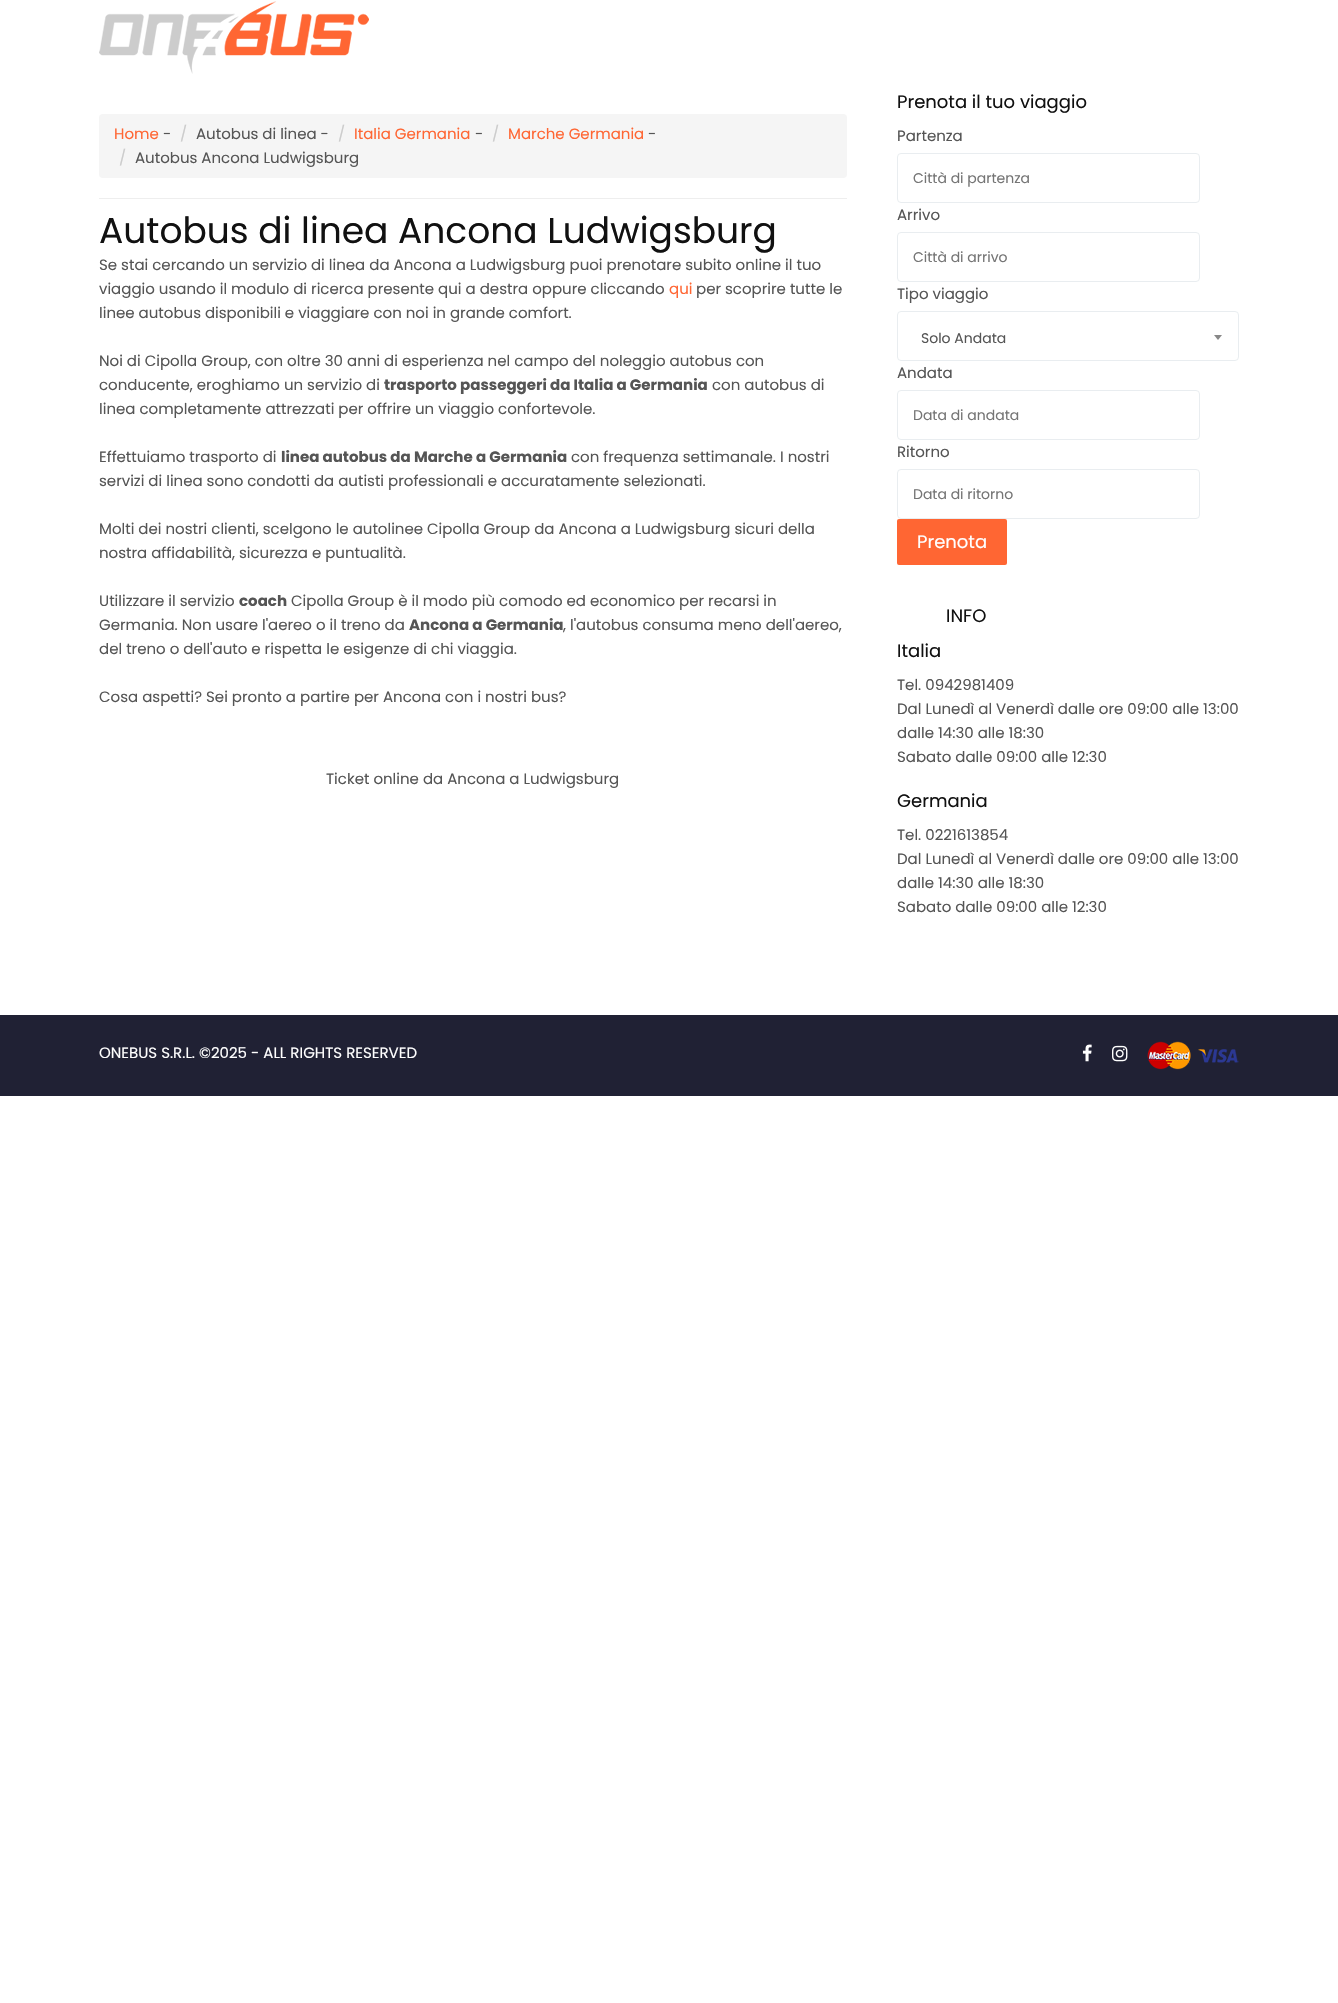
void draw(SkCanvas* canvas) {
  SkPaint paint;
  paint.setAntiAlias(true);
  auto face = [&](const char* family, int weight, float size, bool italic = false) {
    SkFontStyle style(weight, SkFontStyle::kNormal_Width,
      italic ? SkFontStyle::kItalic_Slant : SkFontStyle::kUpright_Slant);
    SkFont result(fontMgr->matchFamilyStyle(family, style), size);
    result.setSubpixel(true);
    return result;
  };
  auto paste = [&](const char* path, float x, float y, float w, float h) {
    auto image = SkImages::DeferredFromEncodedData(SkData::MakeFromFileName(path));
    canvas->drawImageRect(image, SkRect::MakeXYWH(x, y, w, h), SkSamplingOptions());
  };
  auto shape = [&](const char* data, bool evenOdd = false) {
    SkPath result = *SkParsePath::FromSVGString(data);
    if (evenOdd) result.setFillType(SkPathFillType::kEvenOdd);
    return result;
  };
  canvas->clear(0xffffffff);
  paste("img/1.png", 99, 1, 270, 73);
  paint.setColor(0xfff5f5f5);
  canvas->drawRoundRect(SkRect::MakeXYWH(99, 114, 748, 64), 4, 4, paint);
  paint.setColor(0xffeeeeee);
  canvas->drawRect(SkRect::MakeXYWH(99, 198, 748, 1), paint);
  paint.setStroke(true);
  paint.setStrokeWidth(1);
  paint.setColor(0xffe9edf0);
  canvas->drawRoundRect(SkRect::MakeXYWH(897.5f, 153.5f, 302, 49), 3.5f, 3.5f, paint);
  canvas->drawRoundRect(SkRect::MakeXYWH(897.5f, 232.5f, 302, 49), 3.5f, 3.5f, paint);
  canvas->drawRoundRect(SkRect::MakeXYWH(897.5f, 311.5f, 341, 49), 3.5f, 3.5f, paint);
  paint.setStroke(false);
  paint.setColor(0xff888888);
  canvas->drawPath(shape("M1214 335H1222L1218 340Z"), paint);
  paint.setStroke(true);
  paint.setColor(0xffe9edf0);
  canvas->drawRoundRect(SkRect::MakeXYWH(897.5f, 390.5f, 302, 49), 3.5f, 3.5f, paint);
  canvas->drawRoundRect(SkRect::MakeXYWH(897.5f, 469.5f, 302, 49), 3.5f, 3.5f, paint);
  paint.setStroke(false);
  paint.setColor(0xffff6633);
  canvas->drawRoundRect(SkRect::MakeXYWH(897, 519, 110, 46), 2, 2, paint);
  paint.setColor(0xff202134);
  canvas->drawRect(SkRect::MakeXYWH(0, 1015, 1338, 81), paint);
  paste("img/2.png", 1082, 1044, 10, 18);
  paste("img/3.png", 1112, 1045, 16, 17);
  paste("img/4.png", 1147, 1041, 92, 29);
  auto f0 = face("Poppins", 400, 15);
  paint.setColor(0xffff6633);
  canvas->drawString("Home", 114, 139, f0, paint);
  paint.setColor(0xff555555);
  canvas->drawString("-", 163, 139, f0, paint);
  paint.setColor(0xffcccccc);
  canvas->drawString("/", 180, 139, f0, paint);
  paint.setColor(0xff555555);
  canvas->drawString("Autobus di linea -", 196, 139, f0, paint);
  paint.setColor(0xffcccccc);
  canvas->drawString("/", 338, 139, f0, paint);
  paint.setColor(0xffff6633);
  canvas->drawString("Italia Germania", 354, 139, f0, paint);
  paint.setColor(0xff555555);
  canvas->drawString("-", 475, 139, f0, paint);
  paint.setColor(0xffcccccc);
  canvas->drawString("/", 492, 139, f0, paint);
  paint.setColor(0xffff6633);
  canvas->drawString("Marche Germania", 508, 139, f0, paint);
  paint.setColor(0xff555555);
  canvas->drawString("-", 648, 139, f0, paint);
  paint.setColor(0xffcccccc);
  canvas->drawString("/", 119, 163, f0, paint);
  paint.setColor(0xff555555);
  canvas->drawString("Autobus Ancona Ludwigsburg", 135, 163, f0, paint);
  auto f1 = face("Poppins", 400, 36);
  paint.setColor(0xff111111);
  canvas->drawString("Autobus di linea Ancona Ludwigsburg", 99, 243, f1, paint);
  paint.setColor(0xff555555);
  canvas->drawString("Se stai cercando un servizio di linea da Ancona a Ludwigsburg puoi prenotare subito online il tuo", 99, 270, f0, paint);
  canvas->drawString("viaggio usando il modulo di ricerca presente qui a destra oppure cliccando", 99, 294, f0, paint);
  paint.setColor(0xffff6633);
  canvas->drawString("qui", 669, 294, f0, paint);
  paint.setColor(0xff555555);
  {
    const struct { const char* s; float x, y; } items[] = {
      {"per scoprire tutte le", 696, 294},
      {"linee autobus disponibili e viaggiare con noi in grande comfort.", 99, 318},
      {"Noi di Cipolla Group, con oltre 30 anni di esperienza nel campo del noleggio autobus con", 99, 366},
      {"conducente, eroghiamo un servizio di", 99, 390},
    };
    for (auto [s, x, y] : items) {
      canvas->drawString(s, x, y, f0, paint);
    }
  }
  auto f2 = face("Poppins", 700, 15);
  canvas->drawString("trasporto passeggeri da Italia a Germania", 384, 390, f2, paint);
  {
    const struct { const char* s; float x, y; } items[] = {
      {"con autobus di", 712, 390},
      {"linea completamente attrezzati per offrire un viaggio confortevole.", 99, 414},
      {"Effettuiamo trasporto di", 99, 462},
    };
    for (auto [s, x, y] : items) {
      canvas->drawString(s, x, y, f0, paint);
    }
  }
  canvas->drawString("linea autobus da Marche a Germania", 281, 462, f2, paint);
  {
    const struct { const char* s; float x, y; } items[] = {
      {"con frequenza settimanale. I nostri", 571, 462},
      {"servizi di linea sono condotti da autisti professionali e accuratamente selezionati.", 99, 486},
      {"Molti dei nostri clienti, scelgono le autolinee Cipolla Group da Ancona a Ludwigsburg sicuri della", 99, 534},
      {"nostra affidabilità, sicurezza e puntualità.", 99, 558},
      {"Utilizzare il servizio", 99, 606},
    };
    for (auto [s, x, y] : items) {
      canvas->drawString(s, x, y, f0, paint);
    }
  }
  canvas->drawString("coach", 239, 606, f2, paint);
  canvas->drawString("Cipolla Group è il modo più comodo ed economico per recarsi in", 291, 606, f0, paint);
  canvas->drawString("Germania. Non usare l'aereo o il treno da", 99, 630, f0, paint);
  canvas->drawString("Ancona a Germania", 409, 630, f2, paint);
  {
    const struct { const char* s; float x, y; } items[] = {
      {", l'autobus consuma meno dell'aereo,", 563, 630},
      {"del treno o dell'auto e rispetta le esigenze di chi viaggia.", 99, 654},
      {"Cosa aspetti? Sei pronto a partire per Ancona con i nostri bus?", 99, 702},
      {"Ticket online da Ancona a Ludwigsburg", 326, 784},
    };
    for (auto [s, x, y] : items) {
      canvas->drawString(s, x, y, f0, paint);
    }
  }
  auto f3 = face("Poppins", 400, 18);
  paint.setColor(0xff111111);
  canvas->drawString("Prenota il tuo viaggio", 897, 108, f3, paint);
  paint.setColor(0xff555555);
  canvas->drawString("Partenza", 897, 141, f0, paint);
  auto f4 = face("Poppins", 400, 14);
  paint.setColor(0xff757575);
  canvas->drawString("Città di partenza", 913, 183, f4, paint);
  paint.setColor(0xff555555);
  canvas->drawString("Arrivo", 897, 220, f0, paint);
  paint.setColor(0xff757575);
  canvas->drawString("Città di arrivo", 913, 262, f4, paint);
  paint.setColor(0xff555555);
  canvas->drawString("Tipo viaggio", 897, 299, f0, paint);
  canvas->drawString("Solo Andata", 921, 343, f4, paint);
  canvas->drawString("Andata", 897, 378, f0, paint);
  paint.setColor(0xff757575);
  canvas->drawString("Data di andata", 913, 420, f4, paint);
  paint.setColor(0xff555555);
  canvas->drawString("Ritorno", 897, 457, f0, paint);
  paint.setColor(0xff757575);
  canvas->drawString("Data di ritorno", 913, 499, f4, paint);
  paint.setColor(0xffffffff);
  canvas->drawString("Prenota", 917, 548, f3, paint);
  paint.setColor(0xff111111);
  canvas->drawString("INFO", 946, 622, f3, paint);
  canvas->drawString("Italia", 897, 657, f3, paint);
  paint.setColor(0xff555555);
  {
    const struct { const char* s; float x, y; } items[] = {
      {"Tel. 0942981409", 897, 690},
      {"Dal Lunedì al Venerdì dalle ore 09:00 alle 13:00", 897, 714},
      {"dalle 14:30 alle 18:30", 897, 738},
      {"Sabato dalle 09:00 alle 12:30", 897, 762},
    };
    for (auto [s, x, y] : items) {
      canvas->drawString(s, x, y, f0, paint);
    }
  }
  paint.setColor(0xff111111);
  canvas->drawString("Germania", 897, 807, f3, paint);
  paint.setColor(0xff555555);
  {
    const struct { const char* s; float x, y; } items[] = {
      {"Tel. 0221613854", 897, 840},
      {"Dal Lunedì al Venerdì dalle ore 09:00 alle 13:00", 897, 864},
      {"dalle 14:30 alle 18:30", 897, 888},
      {"Sabato dalle 09:00 alle 12:30", 897, 912},
    };
    for (auto [s, x, y] : items) {
      canvas->drawString(s, x, y, f0, paint);
    }
  }
  paint.setColor(0xffffffff);
  canvas->drawString("ONEBUS S.R.L. ©2025 - ALL RIGHTS RESERVED", 99, 1058, f0, paint);
}
